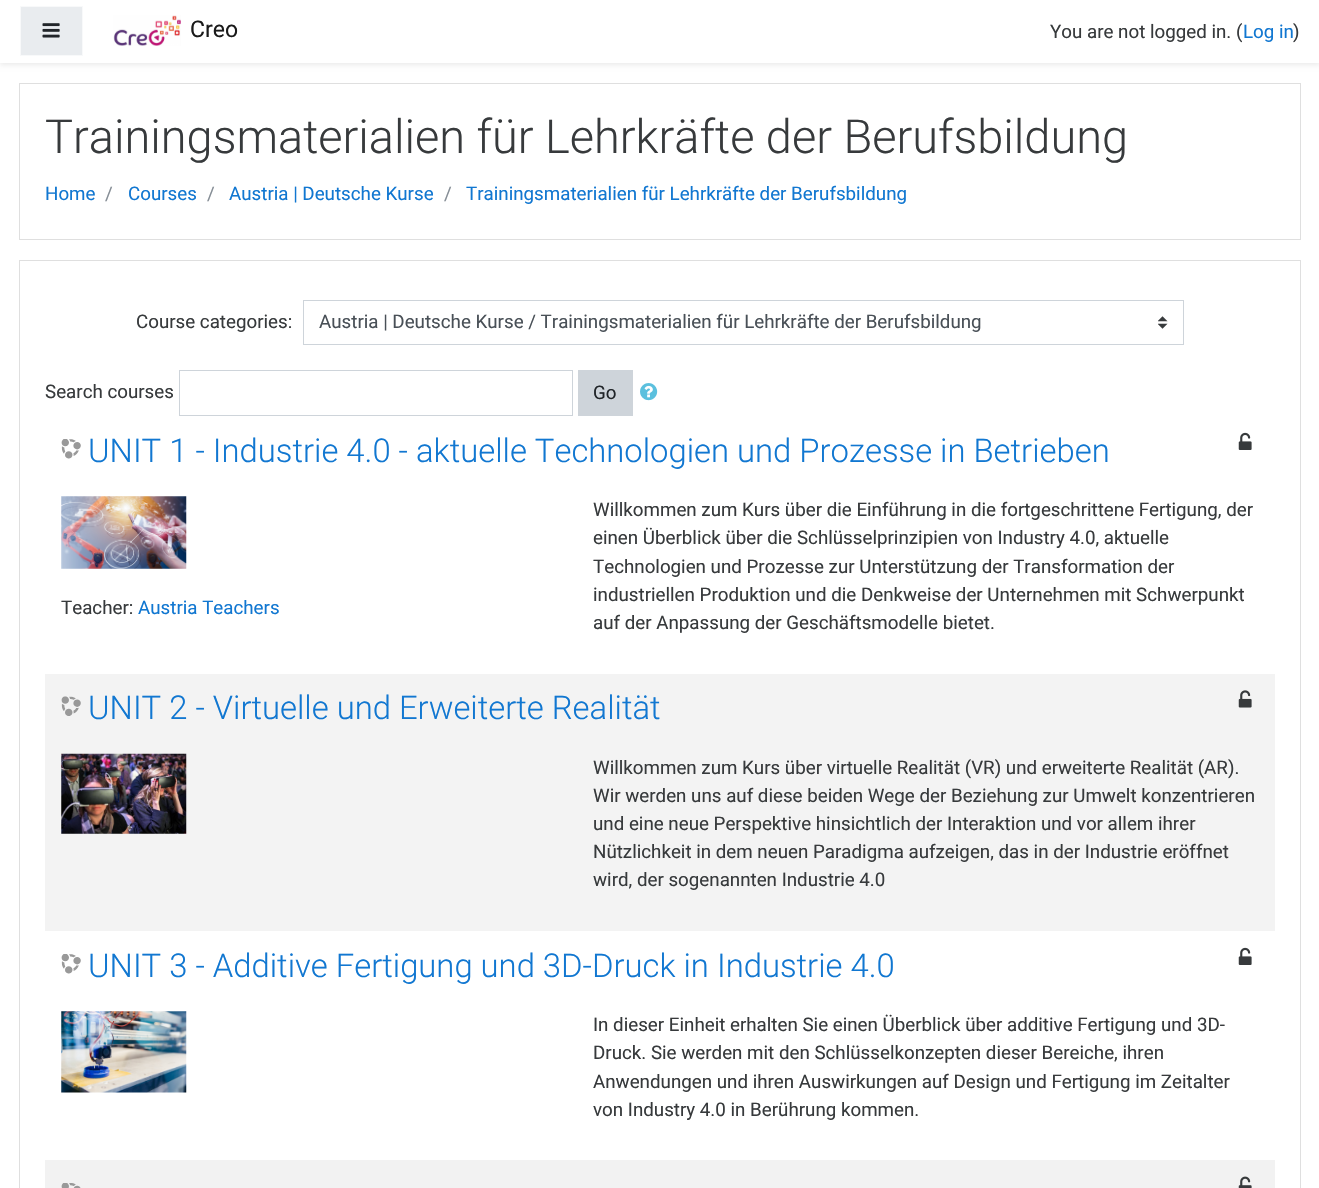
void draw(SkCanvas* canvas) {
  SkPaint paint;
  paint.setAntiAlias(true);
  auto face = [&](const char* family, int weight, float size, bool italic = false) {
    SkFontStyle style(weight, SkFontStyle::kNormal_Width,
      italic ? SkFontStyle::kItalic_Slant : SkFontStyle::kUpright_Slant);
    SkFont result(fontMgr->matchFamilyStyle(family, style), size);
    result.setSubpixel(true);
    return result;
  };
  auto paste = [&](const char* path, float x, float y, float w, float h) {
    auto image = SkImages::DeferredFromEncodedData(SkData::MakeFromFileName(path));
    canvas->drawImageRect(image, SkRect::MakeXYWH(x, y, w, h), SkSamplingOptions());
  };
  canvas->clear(0xffffffff);
  paint.setColor(0x14000000);
  paint.setMaskFilter(SkMaskFilter::MakeBlur(kNormal_SkBlurStyle, 2.5f));
  canvas->drawRect(SkRect::MakeXYWH(0, 3, 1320, 62), paint);
  paint.setMaskFilter(nullptr);
  paint.setColor(0xffffffff);
  canvas->drawRect(SkRect::MakeXYWH(0, 0, 1319, 63), paint);
  paint.setColor(0xffe9ecef);
  canvas->drawRect(SkRect::MakeXYWH(20.5f, 6.5f, 62, 49), paint);
  paint.setStroke(true);
  paint.setStrokeWidth(1);
  paint.setColor(0xfff8f9fa);
  canvas->drawRect(SkRect::MakeXYWH(20.5f, 6.5f, 62, 49), paint);
  paste("img/1.png", 42, 23, 18, 15);
  paste("img/2.png", 113, 15, 68, 31);
  paint.setColor(0xffdfdfdf);
  canvas->drawRect(SkRect::MakeXYWH(19.5f, 83.5f, 1281, 156), paint);
  canvas->drawRect(SkRect::MakeXYWH(19.5f, 260.5f, 1281, 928), paint);
  paste("img/3.png", 1158, 316, 10, 13);
  paint.setColor(0xffced4da);
  canvas->drawRect(SkRect::MakeXYWH(303.5f, 300.5f, 880, 44), paint);
  canvas->drawRect(SkRect::MakeXYWH(179.5f, 370.5f, 393, 45), paint);
  paint.setStroke(false);
  canvas->drawRect(SkRect::MakeXYWH(578, 370, 55, 46), paint);
  paste("img/4.png", 640, 383, 18, 18);
  paste("img/5.png", 61, 439, 20, 20);
  paste("img/6.png", 1238, 432, 14, 18);
  paste("img/7.png", 61, 496, 126, 73);
  paint.setColor(0xfff3f3f3);
  canvas->drawRect(SkRect::MakeXYWH(45, 674, 1230, 257), paint);
  paste("img/8.png", 61, 696, 20, 20);
  paste("img/9.png", 1238, 690, 14, 18);
  paste("img/10.png", 61, 753, 126, 81);
  paste("img/5.png", 61, 954, 20, 20);
  paste("img/6.png", 1238, 947, 14, 18);
  paste("img/11.png", 61, 1011, 126, 82);
  paint.setColor(0xfff2f2f2);
  canvas->drawRect(SkRect::MakeXYWH(45, 1160, 1230, 28), paint);
  paste("img/12.png", 61, 1183, 20, 5);
  paste("img/13.png", 1238, 1176, 14, 12);
  auto f0 = face("Roboto", 400, 23);
  paint.setColor(0xff1a1a1a);
  canvas->drawString("Creo", 190, 37, f0, paint);
  auto f1 = face("Roboto", 400, 18.75f);
  paint.setColor(0xff373a3c);
  canvas->drawString("You are not logged in. (", 1050, 38, f1, paint);
  paint.setColor(0xff1177d1);
  canvas->drawString("Log in", 1243, 38, f1, paint);
  paint.setColor(0xff373a3c);
  canvas->drawString(")", 1293, 38, f1, paint);
  auto f2 = face("Roboto", 300, 46.9f);
  canvas->drawString("Trainingsmaterialien für Lehrkräfte der Berufsbildung", 45, 153, f2, paint);
  paint.setColor(0xff1177d1);
  canvas->drawString("Home", 45, 200, f1, paint);
  paint.setColor(0xff868e96);
  canvas->drawString("/", 105, 200, f1, paint);
  paint.setColor(0xff1177d1);
  canvas->drawString("Courses", 128, 200, f1, paint);
  paint.setColor(0xff868e96);
  canvas->drawString("/", 207, 200, f1, paint);
  paint.setColor(0xff1177d1);
  canvas->drawString("Austria | Deutsche Kurse", 229, 200, f1, paint);
  paint.setColor(0xff868e96);
  canvas->drawString("/", 444, 200, f1, paint);
  paint.setColor(0xff1177d1);
  canvas->drawString("Trainingsmaterialien für Lehrkräfte der Berufsbildung", 466, 200, f1, paint);
  paint.setColor(0xff373a3c);
  canvas->drawString("Course categories:", 136, 328, f1, paint);
  paint.setColor(0xff495057);
  canvas->drawString("Austria | Deutsche Kurse / Trainingsmaterialien für Lehrkräfte der Berufsbildung", 319, 328, f1, paint);
  paint.setColor(0xff373a3c);
  canvas->drawString("Search courses", 45, 398, f1, paint);
  paint.setColor(0xff212529);
  canvas->drawString("Go", 593, 399, f1, paint);
  auto f3 = face("Roboto", 300, 32.8f);
  paint.setColor(0xff1177d1);
  canvas->drawString("UNIT 1 - Industrie 4.0 - aktuelle Technologien und Prozesse in Betrieben", 88, 462, f3, paint);
  paint.setColor(0xff373a3c);
  {
    const struct { const char* s; float x, y; } items[] = {
      {"Willkommen zum Kurs über die Einführung in die fortgeschrittene Fertigung, der", 593, 516},
      {"einen Überblick über die Schlüsselprinzipien von Industry 4.0, aktuelle", 593, 544},
      {"Technologien und Prozesse zur Unterstützung der Transformation der", 593, 573},
      {"industriellen Produktion und die Denkweise der Unternehmen mit Schwerpunkt", 593, 601},
      {"auf der Anpassung der Geschäftsmodelle bietet.", 593, 629},
      {"Teacher:", 61, 614},
    };
    for (auto [s, x, y] : items) {
      canvas->drawString(s, x, y, f1, paint);
    }
  }
  paint.setColor(0xff1177d1);
  canvas->drawString("Austria Teachers", 138, 614, f1, paint);
  canvas->drawString("UNIT 2 - Virtuelle und Erweiterte Realität", 88, 719, f3, paint);
  paint.setColor(0xff373a3c);
  {
    const struct { const char* s; float x, y; } items[] = {
      {"Willkommen zum Kurs über virtuelle Realität (VR) und erweiterte Realität (AR).", 593, 774},
      {"Wir werden uns auf diese beiden Wege der Beziehung zur Umwelt konzentrieren", 593, 802},
      {"und eine neue Perspektive hinsichtlich der Interaktion und vor allem ihrer", 593, 830},
      {"Nützlichkeit in dem neuen Paradigma aufzeigen, das in der Industrie eröffnet", 593, 858},
      {"wird, der sogenannten Industrie 4.0", 593, 886},
    };
    for (auto [s, x, y] : items) {
      canvas->drawString(s, x, y, f1, paint);
    }
  }
  paint.setColor(0xff1177d1);
  canvas->drawString("UNIT 3 - Additive Fertigung und 3D-Druck in Industrie 4.0", 88, 977, f3, paint);
  paint.setColor(0xff373a3c);
  {
    const struct { const char* s; float x, y; } items[] = {
      {"In dieser Einheit erhalten Sie einen Überblick über additive Fertigung und 3D-", 593, 1031},
      {"Druck. Sie werden mit den Schlüsselkonzepten dieser Bereiche, ihren", 593, 1059},
      {"Anwendungen und ihren Auswirkungen auf Design und Fertigung im Zeitalter", 593, 1088},
      {"von Industry 4.0 in Berührung kommen.", 593, 1116},
    };
    for (auto [s, x, y] : items) {
      canvas->drawString(s, x, y, f1, paint);
    }
  }
}
